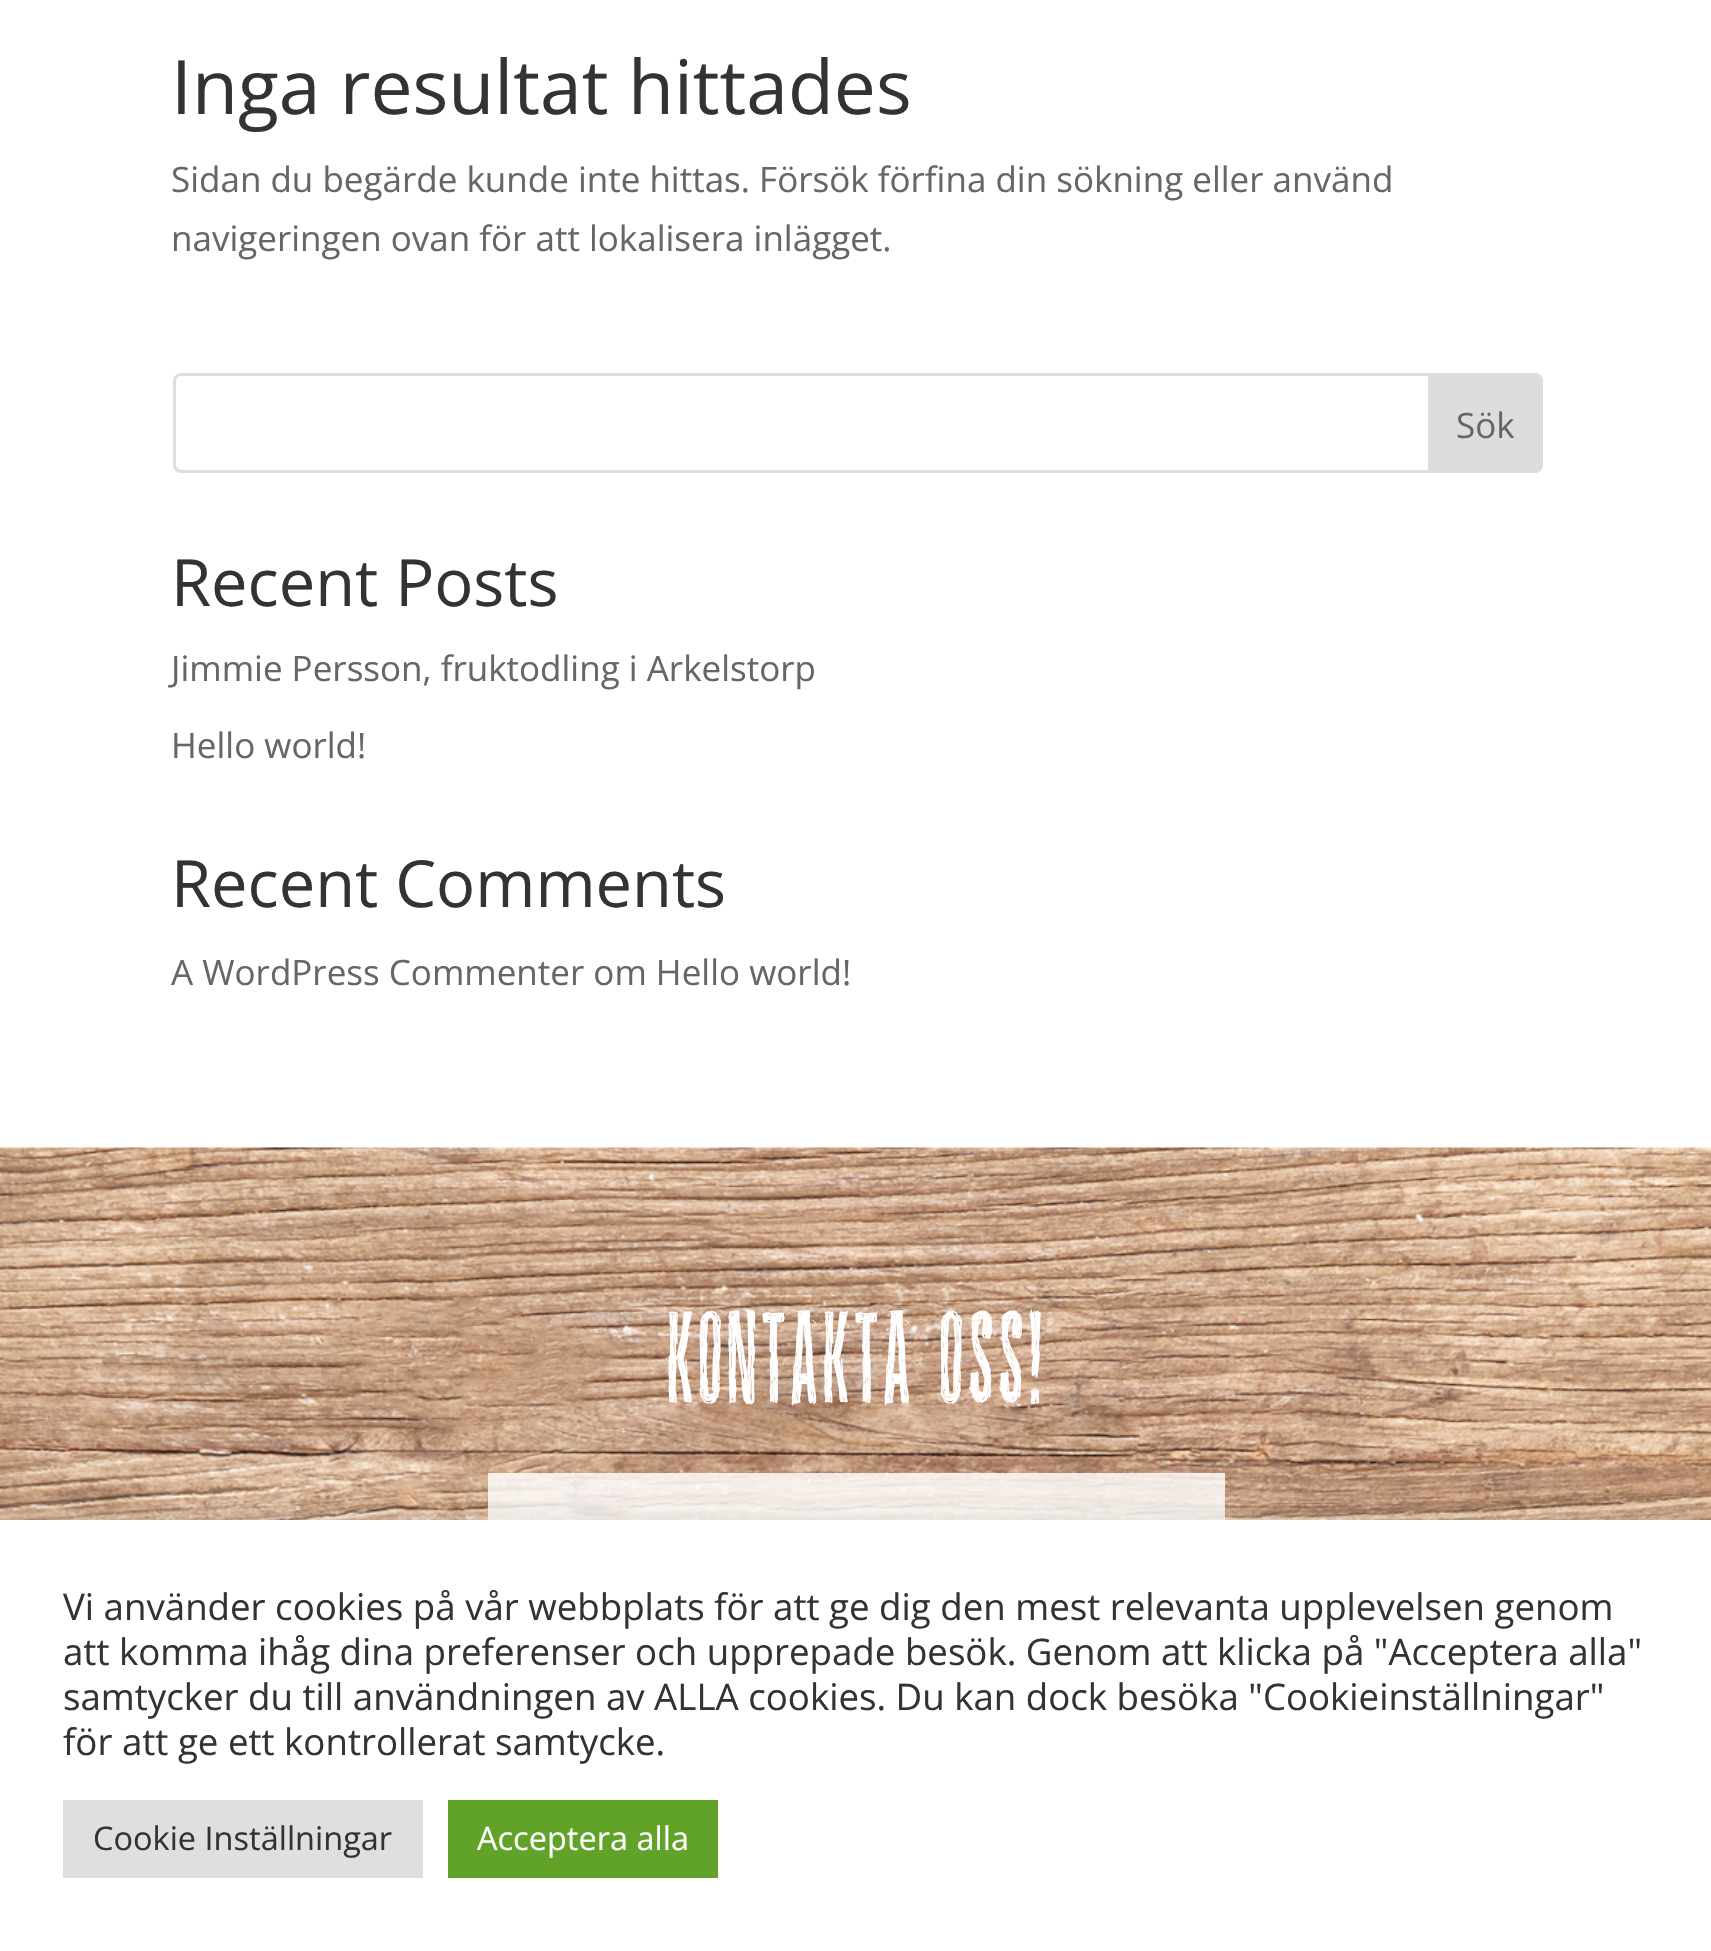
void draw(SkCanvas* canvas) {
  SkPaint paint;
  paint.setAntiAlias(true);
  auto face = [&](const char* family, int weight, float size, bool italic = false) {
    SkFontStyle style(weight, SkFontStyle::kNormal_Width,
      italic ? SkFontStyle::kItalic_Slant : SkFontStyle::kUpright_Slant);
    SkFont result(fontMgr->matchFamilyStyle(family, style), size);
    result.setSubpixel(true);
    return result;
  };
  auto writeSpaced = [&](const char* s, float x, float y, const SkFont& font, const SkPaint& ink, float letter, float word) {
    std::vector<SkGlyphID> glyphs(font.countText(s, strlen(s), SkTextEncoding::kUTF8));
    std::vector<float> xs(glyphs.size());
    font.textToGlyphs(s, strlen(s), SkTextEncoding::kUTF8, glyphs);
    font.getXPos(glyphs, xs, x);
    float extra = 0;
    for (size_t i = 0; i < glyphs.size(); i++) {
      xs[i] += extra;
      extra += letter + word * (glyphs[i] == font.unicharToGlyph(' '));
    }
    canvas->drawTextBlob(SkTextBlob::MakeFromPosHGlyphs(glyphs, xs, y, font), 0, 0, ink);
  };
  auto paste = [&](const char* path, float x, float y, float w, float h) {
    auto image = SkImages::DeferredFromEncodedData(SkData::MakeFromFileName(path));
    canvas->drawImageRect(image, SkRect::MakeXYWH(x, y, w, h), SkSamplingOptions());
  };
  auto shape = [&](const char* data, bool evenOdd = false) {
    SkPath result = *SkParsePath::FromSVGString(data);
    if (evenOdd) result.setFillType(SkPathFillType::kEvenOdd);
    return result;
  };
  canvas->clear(0xffffffff);
  paint.setStroke(true);
  paint.setStrokeWidth(3);
  paint.setColor(0xffdddddd);
  canvas->drawRoundRect(SkRect::MakeXYWH(174.5f, 374.5f, 1367, 97), 6.5f, 6.5f, paint);
  paint.setStroke(false);
  canvas->drawPath(shape("M1429.5 374.5H1535C1538.5 374.5 1541.5 377.5 1541.5 381V465C1541.5 468.5 1538.5 471.5 1535 471.5H1429.5Z"), paint);
  paint.setStroke(true);
  canvas->drawPath(shape("M1429.5 374.5H1535C1538.5 374.5 1541.5 377.5 1541.5 381V465C1541.5 468.5 1538.5 471.5 1535 471.5H1429.5Z"), paint);
  paste("img/1.png", 0, 1147, 1711, 373);
  paint.setStroke(false);
  paint.setColor(0xcfffffff);
  canvas->drawRect(SkRect::MakeXYWH(488, 1473, 737, 47), paint);
  paint.setColor(0x4dacabab);
  paint.setMaskFilter(SkMaskFilter::MakeBlur(kNormal_SkBlurStyle, 12.5f));
  canvas->drawRect(SkRect::MakeXYWH(0, 1518, 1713, 432), paint);
  paint.setMaskFilter(nullptr);
  {
    const struct { float x, y, w, h; SkColor color; } items[] = {
      {0, 1520, 1711, 431, 0xffffffff},
      {63, 1800, 360, 78, 0xffdedfe0},
      {448, 1800, 270, 78, 0xff61a229},
    };
    for (auto [x, y, w, h, color] : items) {
      paint.setColor(color);
      canvas->drawRect(SkRect::MakeXYWH(x, y, w, h), paint);
    }
  }
  auto f0 = face("Open Sans", 400, 75);
  paint.setColor(0xff333333);
  canvas->drawString("Inga resultat hittades", 171, 114, f0, paint);
  auto f1 = face("Open Sans", 400, 35);
  paint.setColor(0xff666666);
  {
    const struct { const char* s; float x, y; } items[] = {
      {"Sidan du begärde kunde inte hittas. Försök förfina din sökning eller använd", 171, 192},
      {"navigeringen ovan för att lokalisera inlägget.", 171, 251},
      {"Sök", 1456, 438},
    };
    for (auto [s, x, y] : items) {
      canvas->drawString(s, x, y, f1, paint);
    }
  }
  auto f2 = face("Open Sans", 400, 65);
  paint.setColor(0xff333333);
  canvas->drawString("Recent Posts", 171, 606, f2, paint);
  paint.setColor(0xff666666);
  canvas->drawString("Jimmie Persson, fruktodling i Arkelstorp", 171, 681, f1, paint);
  canvas->drawString("Hello world!", 171, 758, f1, paint);
  paint.setColor(0xff333333);
  canvas->drawString("Recent Comments", 171, 907, f2, paint);
  paint.setColor(0xff666666);
  canvas->drawString("A WordPress Commenter om Hello world!", 171, 985, f1, paint);
  auto f3 = face("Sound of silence", 400, 125);
  paint.setColor(0xffffffff);
  writeSpaced("Kontakta oss!", 666, 1403, f3, paint, 2.5f, 0);
  auto f4 = face("Open Sans", 400, 36.65f);
  paint.setColor(0xff333333);
  {
    const struct { const char* s; float x, y; } items[] = {
      {"Vi använder cookies på vår webbplats för att ge dig den mest relevanta upplevelsen genom", 63, 1620},
      {"att komma ihåg dina preferenser och upprepade besök. Genom att klicka på \"Acceptera alla\"", 63, 1665},
      {"samtycker du till användningen av ALLA cookies. Du kan dock besöka \"Cookieinställningar\"", 63, 1710},
      {"för att ge ett kontrollerat samtycke.", 63, 1755},
    };
    for (auto [s, x, y] : items) {
      canvas->drawString(s, x, y, f4, paint);
    }
  }
  auto f5 = face("Open Sans", 400, 32.5f);
  canvas->drawString("Cookie Inställningar", 93, 1850, f5, paint);
  paint.setColor(0xffffffff);
  canvas->drawString("Acceptera alla", 477, 1850, f5, paint);
}
